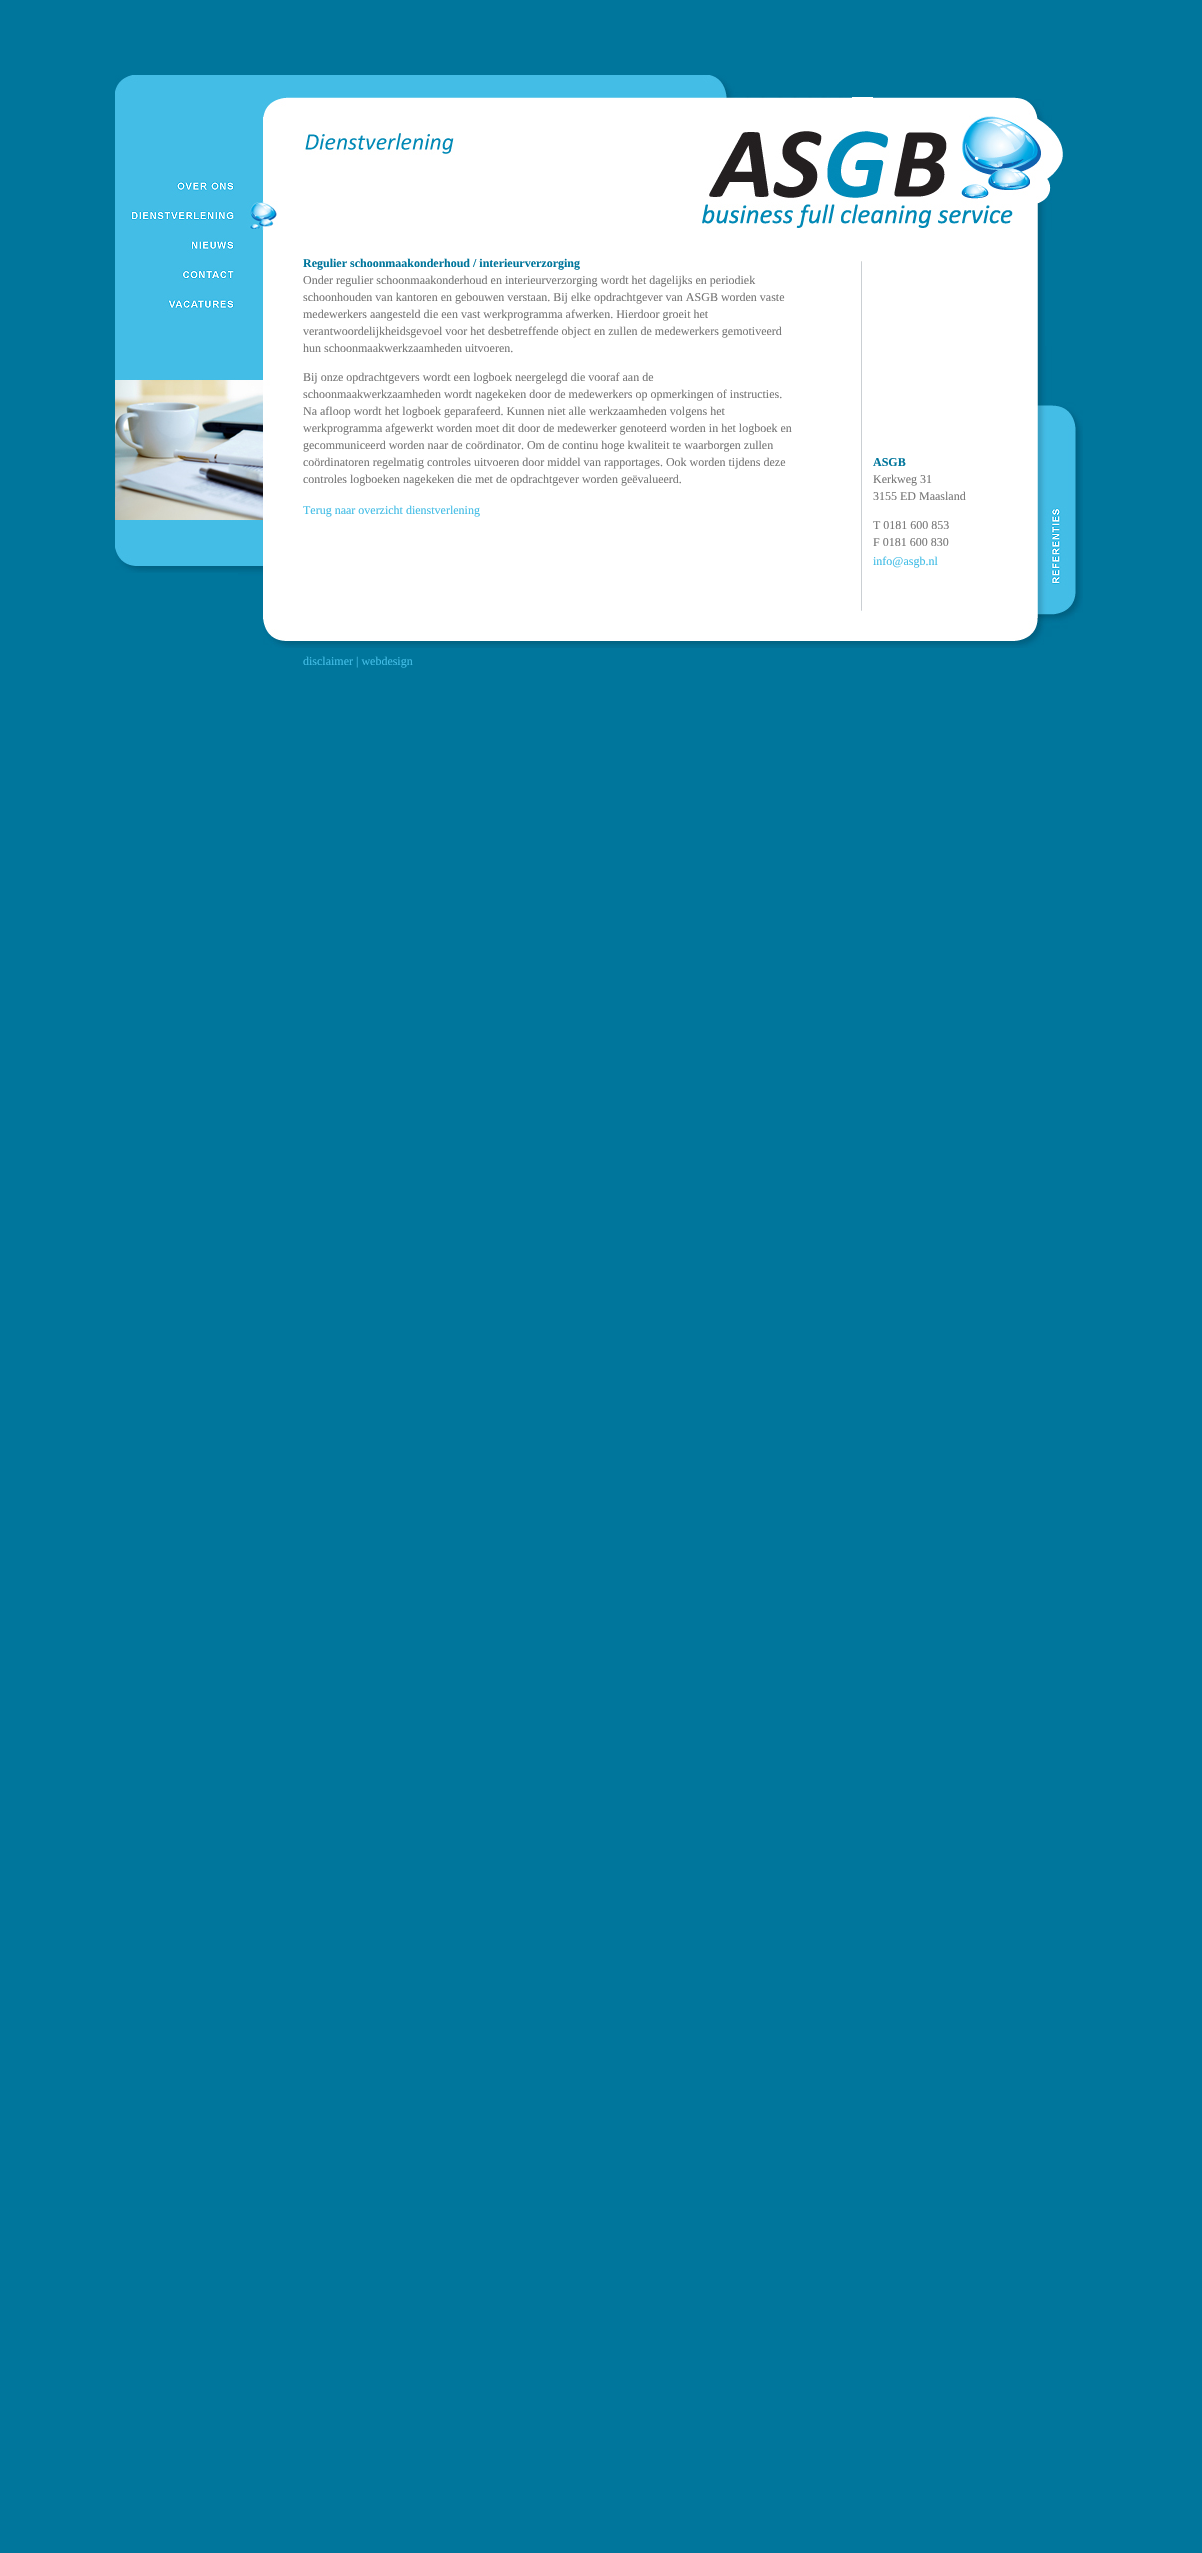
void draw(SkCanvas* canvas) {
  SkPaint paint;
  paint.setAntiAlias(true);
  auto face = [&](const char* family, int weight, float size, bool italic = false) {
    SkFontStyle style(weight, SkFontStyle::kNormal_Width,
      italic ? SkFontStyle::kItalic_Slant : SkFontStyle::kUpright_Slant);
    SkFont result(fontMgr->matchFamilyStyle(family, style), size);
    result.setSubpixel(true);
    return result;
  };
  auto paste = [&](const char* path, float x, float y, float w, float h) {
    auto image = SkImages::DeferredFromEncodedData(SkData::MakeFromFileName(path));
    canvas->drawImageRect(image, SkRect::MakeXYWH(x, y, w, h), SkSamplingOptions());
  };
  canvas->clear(0xff00769c);
  paste("img/1.png", 115, 75, 123, 56);
  paste("img/2.png", 238, 75, 65, 56);
  paste("img/3.png", 303, 75, 549, 56);
  paint.setColor(0xffffffff);
  canvas->drawRect(SkRect::MakeXYWH(852, 97, 21, 34), paint);
  paste("img/4.png", 873, 97, 139, 34);
  paste("img/5.png", 1012, 97, 41, 34);
  paint.setColor(0xff43bde6);
  canvas->drawRect(SkRect::MakeXYWH(115, 131, 123, 41), paint);
  paste("img/6.png", 238, 131, 65, 41);
  paste("img/7.png", 303, 131, 549, 41);
  paste("img/8.png", 852, 131, 21, 41);
  paste("img/9.png", 873, 131, 139, 41);
  paste("img/10.png", 1012, 131, 51, 41);
  paste("img/11.png", 115, 172, 123, 29);
  paste("img/12.png", 238, 172, 65, 29);
  paint.setColor(0xffffffff);
  canvas->drawRect(SkRect::MakeXYWH(303, 172, 549, 441), paint);
  paste("img/13.png", 700, 172, 152, 56);
  canvas->drawRect(SkRect::MakeXYWH(852, 224, 21, 389), paint);
  paste("img/14.png", 852, 172, 21, 52);
  canvas->drawRect(SkRect::MakeXYWH(873, 228, 139, 385), paint);
  paste("img/15.png", 873, 172, 139, 56);
  paste("img/16.png", 1012, 172, 43, 58);
  paste("img/17.png", 115, 201, 123, 29);
  paste("img/18.png", 238, 201, 65, 29);
  paste("img/19.png", 115, 259, 123, 29);
  paste("img/12.png", 238, 259, 65, 29);
  paste("img/20.png", 115, 230, 123, 29);
  paste("img/12.png", 238, 230, 65, 29);
  paste("img/21.png", 861, 261, 1, 352);
  paste("img/22.png", 1012, 230, 33, 116);
  paste("img/23.png", 115, 288, 123, 29);
  paste("img/12.png", 238, 288, 65, 29);
  paint.setColor(0xff43bde6);
  canvas->drawRect(SkRect::MakeXYWH(115, 317, 123, 29), paint);
  paste("img/12.png", 238, 317, 65, 29);
  paste("img/24.png", 115, 346, 123, 227);
  paste("img/25.png", 238, 346, 65, 267);
  paste("img/26.png", 1012, 346, 71, 267);
  paste("img/27.png", 263, 613, 40, 35);
  paste("img/28.png", 303, 613, 549, 35);
  paste("img/29.png", 852, 613, 21, 35);
  paste("img/30.png", 873, 613, 139, 35);
  paste("img/31.png", 1012, 613, 63, 35);
  auto f0 = face("Liberation Serif", 700, 12);
  paint.setColor(0xff00769c);
  canvas->drawString("Regulier schoonmaakonderhoud / interieurverzorging", 303, 267, f0, paint);
  auto f1 = face("Liberation Serif", 400, 12);
  paint.setColor(0xff777777);
  {
    const struct { const char* s; float x, y; } items[] = {
      {"Onder regulier schoonmaakonderhoud en interieurverzorging wordt het dagelijks en periodiek", 303, 284},
      {"schoonhouden van kantoren en gebouwen verstaan. Bij elke opdrachtgever van ASGB worden vaste", 303, 301},
      {"medewerkers aangesteld die een vast werkprogramma afwerken. Hierdoor groeit het", 303, 318},
      {"verantwoordelijkheidsgevoel voor het desbetreffende object en zullen de medewerkers gemotiveerd", 303, 335},
      {"hun schoonmaakwerkzaamheden uitvoeren.", 303, 352},
      {"Bij onze opdrachtgevers wordt een logboek neergelegd die vooraf aan de", 303, 381},
      {"schoonmaakwerkzaamheden wordt nagekeken door de medewerkers op opmerkingen of instructies.", 303, 398},
      {"Na afloop wordt het logboek geparafeerd. Kunnen niet alle werkzaamheden volgens het", 303, 415},
      {"werkprogramma afgewerkt worden moet dit door de medewerker genoteerd worden in het logboek en", 303, 432},
      {"gecommuniceerd worden naar de coördinator. Om de continu hoge kwaliteit te waarborgen zullen", 303, 449},
      {"coördinatoren regelmatig controles uitvoeren door middel van rapportages. Ook worden tijdens deze", 303, 466},
      {"controles logboeken nagekeken die met de opdrachtgever worden geëvalueerd.", 303, 483},
    };
    for (auto [s, x, y] : items) {
      canvas->drawString(s, x, y, f1, paint);
    }
  }
  paint.setColor(0xff43bde6);
  canvas->drawString("Terug naar overzicht dienstverlening", 303, 514, f1, paint);
  paint.setColor(0xff00769c);
  canvas->drawString("ASGB", 873, 466, f0, paint);
  paint.setColor(0xff777777);
  {
    const struct { const char* s; float x, y; } items[] = {
      {"Kerkweg 31", 873, 483},
      {"3155 ED Maasland", 873, 500},
      {"T 0181 600 853", 873, 529},
      {"F 0181 600 830", 873, 546},
    };
    for (auto [s, x, y] : items) {
      canvas->drawString(s, x, y, f1, paint);
    }
  }
  paint.setColor(0xff43bde6);
  canvas->drawString("info@asgb.nl", 873, 565, f1, paint);
  canvas->drawString("disclaimer | webdesign", 303, 665, f1, paint);
}
